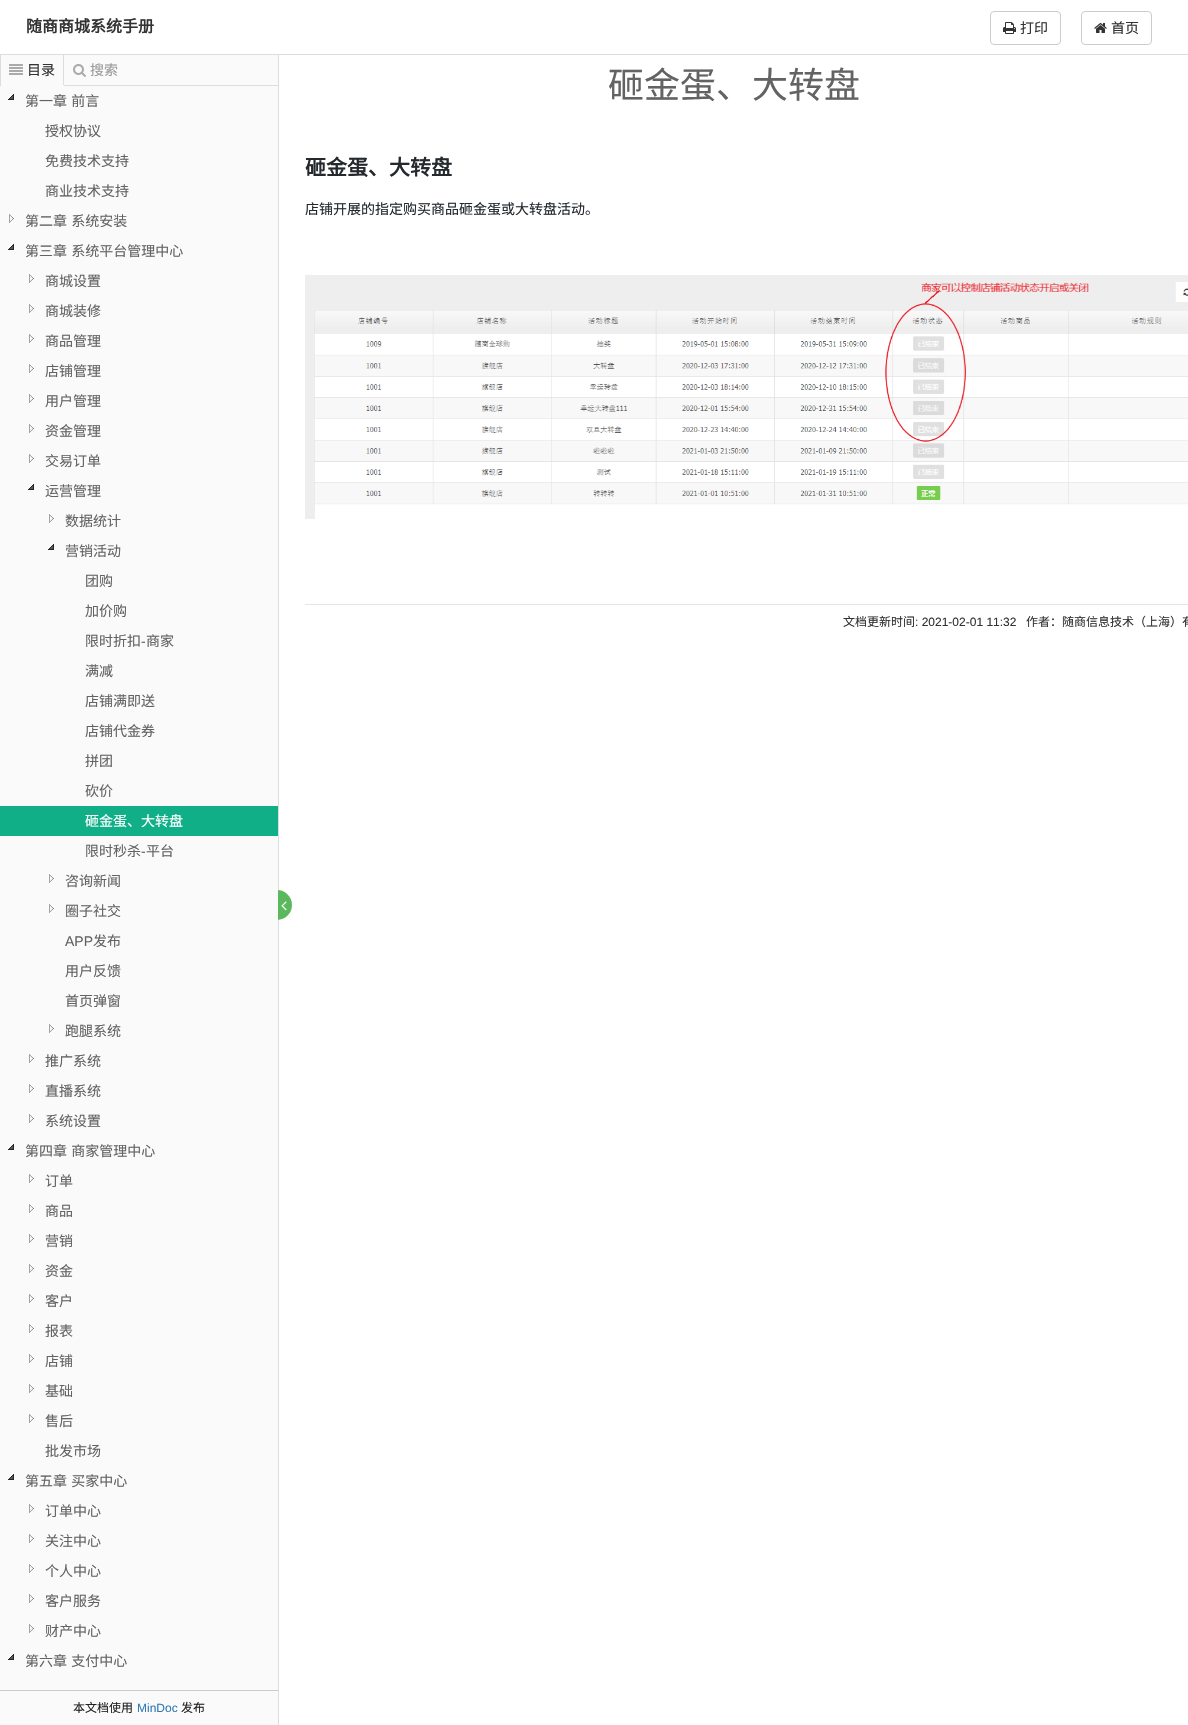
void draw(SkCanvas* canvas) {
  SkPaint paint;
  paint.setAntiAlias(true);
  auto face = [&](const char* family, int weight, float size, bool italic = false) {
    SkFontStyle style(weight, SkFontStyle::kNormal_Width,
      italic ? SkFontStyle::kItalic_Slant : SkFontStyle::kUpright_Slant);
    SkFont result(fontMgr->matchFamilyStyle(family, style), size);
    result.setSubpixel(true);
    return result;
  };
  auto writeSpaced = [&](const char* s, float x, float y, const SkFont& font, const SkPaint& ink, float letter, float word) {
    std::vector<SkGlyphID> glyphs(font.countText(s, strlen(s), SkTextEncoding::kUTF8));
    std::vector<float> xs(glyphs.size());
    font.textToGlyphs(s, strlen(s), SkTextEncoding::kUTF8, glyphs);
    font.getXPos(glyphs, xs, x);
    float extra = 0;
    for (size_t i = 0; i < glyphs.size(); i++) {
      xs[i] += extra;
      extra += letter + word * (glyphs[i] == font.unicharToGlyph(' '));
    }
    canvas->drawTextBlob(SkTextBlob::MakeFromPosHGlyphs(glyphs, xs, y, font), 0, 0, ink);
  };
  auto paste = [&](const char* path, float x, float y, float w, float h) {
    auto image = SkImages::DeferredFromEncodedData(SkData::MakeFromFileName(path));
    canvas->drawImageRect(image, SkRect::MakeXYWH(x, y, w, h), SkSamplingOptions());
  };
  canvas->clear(0xffffffff);
  paint.setStroke(true);
  paint.setStrokeWidth(1);
  paint.setColor(0xffcccccc);
  canvas->drawRoundRect(SkRect::MakeXYWH(990.5f, 11.5f, 70, 33), 3.5f, 3.5f, paint);
  paste("img/1.png", 1003, 22, 13, 12);
  canvas->drawRoundRect(SkRect::MakeXYWH(1081.5f, 11.5f, 70, 33), 3.5f, 3.5f, paint);
  paste("img/2.png", 1094, 23, 13, 10);
  paint.setStroke(false);
  {
    const struct { float x, y, w, h; SkColor color; } items[] = {
      {0, 54, 1188, 1, 0xffdddddd},
      {0, 55, 278, 1670, 0xfffafafa},
      {278, 55, 1, 1670, 0xffdddddd},
      {64, 85, 214, 1, 0xffdddddd},
      {63, 55, 1, 31, 0xffdddddd},
      {63, 85, 1, 1, 0xfffafafa},
      {0, 55, 1, 31, 0xffdddddd},
    };
    for (auto [x, y, w, h, color] : items) {
      paint.setColor(color);
      canvas->drawRect(SkRect::MakeXYWH(x, y, w, h), paint);
    }
  }
  paste("img/3.png", 9, 64, 14, 11);
  paste("img/4.png", 73, 64, 13, 13);
  paint.setColor(0xff5cb85c);
  canvas->drawCircle(277, 905, 15, paint);
  paint.setColor(0xfffafafa);
  canvas->drawRect(SkRect::MakeXYWH(262, 890, 16, 30), paint);
  paste("img/5.png", 8, 94, 6, 6);
  paste("img/6.png", 9, 214, 5, 9);
  paste("img/5.png", 8, 244, 6, 6);
  paste("img/6.png", 29, 274, 5, 9);
  paste("img/6.png", 29, 304, 5, 9);
  paste("img/6.png", 29, 334, 5, 9);
  paste("img/6.png", 29, 364, 5, 9);
  paste("img/6.png", 29, 394, 5, 9);
  paste("img/6.png", 29, 424, 5, 9);
  paste("img/6.png", 29, 454, 5, 9);
  paste("img/5.png", 28, 484, 6, 6);
  paste("img/6.png", 49, 514, 5, 9);
  paste("img/5.png", 48, 544, 6, 6);
  paint.setColor(0xff10af88);
  canvas->drawRect(SkRect::MakeXYWH(0, 806, 278, 30), paint);
  paste("img/6.png", 49, 874, 5, 9);
  paste("img/6.png", 49, 904, 5, 9);
  paste("img/6.png", 49, 1024, 5, 9);
  paste("img/6.png", 29, 1054, 5, 9);
  paste("img/6.png", 29, 1084, 5, 9);
  paste("img/6.png", 29, 1114, 5, 9);
  paste("img/5.png", 8, 1144, 6, 6);
  paste("img/6.png", 29, 1174, 5, 9);
  paste("img/6.png", 29, 1204, 5, 9);
  paste("img/6.png", 29, 1234, 5, 9);
  paste("img/6.png", 29, 1264, 5, 9);
  paste("img/6.png", 29, 1294, 5, 9);
  paste("img/6.png", 29, 1324, 5, 9);
  paste("img/6.png", 29, 1354, 5, 9);
  paste("img/6.png", 29, 1384, 5, 9);
  paste("img/6.png", 29, 1414, 5, 9);
  paste("img/5.png", 8, 1474, 6, 6);
  paste("img/6.png", 29, 1504, 5, 9);
  paste("img/6.png", 29, 1534, 5, 9);
  paste("img/6.png", 29, 1564, 5, 9);
  paste("img/6.png", 29, 1594, 5, 9);
  paste("img/6.png", 29, 1624, 5, 9);
  paste("img/5.png", 8, 1654, 6, 6);
  paste("img/7.png", 281, 901, 6, 10);
  paint.setColor(0xffcccccc);
  canvas->drawRect(SkRect::MakeXYWH(0, 1690, 278, 1), paint);
  paste("img/8.png", 305, 275, 883, 244);
  paint.setColor(0xffe5e5e5);
  canvas->drawRect(SkRect::MakeXYWH(305, 604, 883, 1), paint);
  auto f0 = face("Noto Sans CJK SC", 700, 16);
  paint.setColor(0xff333333);
  canvas->drawString("随商商城系统手册", 26, 32, f0, paint);
  auto f1 = face("Noto Sans CJK SC", 400, 14);
  {
    const struct { const char* s; float x, y; } items[] = {
      {"打印", 1020, 33},
      {"首页", 1111, 33},
      {"目录", 27, 75},
    };
    for (auto [s, x, y] : items) {
      canvas->drawString(s, x, y, f1, paint);
    }
  }
  paint.setColor(0xff999999);
  canvas->drawString("搜索", 90, 75, f1, paint);
  paint.setColor(0xff636363);
  writeSpaced("第一章 前言", 25, 106, f1, paint, 0, 1);
  {
    const struct { const char* s; float x, y; } items[] = {
      {"授权协议", 45, 136},
      {"免费技术支持", 45, 166},
      {"商业技术支持", 45, 196},
    };
    for (auto [s, x, y] : items) {
      canvas->drawString(s, x, y, f1, paint);
    }
  }
  writeSpaced("第二章 系统安装", 25, 226, f1, paint, 0, 1);
  writeSpaced("第三章 系统平台管理中心", 25, 256, f1, paint, 0, 1);
  {
    const struct { const char* s; float x, y; } items[] = {
      {"商城设置", 45, 286},
      {"商城装修", 45, 316},
      {"商品管理", 45, 346},
      {"店铺管理", 45, 376},
      {"用户管理", 45, 406},
      {"资金管理", 45, 436},
      {"交易订单", 45, 466},
      {"运营管理", 45, 496},
      {"数据统计", 65, 526},
      {"营销活动", 65, 556},
      {"团购", 85, 586},
      {"加价购", 85, 616},
      {"限时折扣", 85, 646},
    };
    for (auto [s, x, y] : items) {
      canvas->drawString(s, x, y, f1, paint);
    }
  }
  auto f2 = face("Liberation Sans", 400, 14);
  canvas->drawString("-", 141, 646, f2, paint);
  {
    const struct { const char* s; float x, y; } items[] = {
      {"商家", 146, 646},
      {"满减", 85, 676},
      {"店铺满即送", 85, 706},
      {"店铺代金券", 85, 736},
      {"拼团", 85, 766},
      {"砍价", 85, 796},
    };
    for (auto [s, x, y] : items) {
      canvas->drawString(s, x, y, f1, paint);
    }
  }
  paint.setColor(0xffffffff);
  canvas->drawString("砸金蛋、大转盘", 85, 826, f1, paint);
  paint.setColor(0xff636363);
  canvas->drawString("限时秒杀", 85, 856, f1, paint);
  canvas->drawString("-", 141, 856, f2, paint);
  {
    const struct { const char* s; float x, y; } items[] = {
      {"平台", 146, 856},
      {"咨询新闻", 65, 886},
      {"圈子社交", 65, 916},
    };
    for (auto [s, x, y] : items) {
      canvas->drawString(s, x, y, f1, paint);
    }
  }
  canvas->drawString("APP", 65, 946, f2, paint);
  {
    const struct { const char* s; float x, y; } items[] = {
      {"发布", 93, 946},
      {"用户反馈", 65, 976},
      {"首页弹窗", 65, 1006},
      {"跑腿系统", 65, 1036},
      {"推广系统", 45, 1066},
      {"直播系统", 45, 1096},
      {"系统设置", 45, 1126},
    };
    for (auto [s, x, y] : items) {
      canvas->drawString(s, x, y, f1, paint);
    }
  }
  writeSpaced("第四章 商家管理中心", 25, 1156, f1, paint, 0, 1);
  {
    const struct { const char* s; float x, y; } items[] = {
      {"订单", 45, 1186},
      {"商品", 45, 1216},
      {"营销", 45, 1246},
      {"资金", 45, 1276},
      {"客户", 45, 1306},
      {"报表", 45, 1336},
      {"店铺", 45, 1366},
      {"基础", 45, 1396},
      {"售后", 45, 1426},
      {"批发市场", 45, 1456},
    };
    for (auto [s, x, y] : items) {
      canvas->drawString(s, x, y, f1, paint);
    }
  }
  writeSpaced("第五章 买家中心", 25, 1486, f1, paint, 0, 1);
  {
    const struct { const char* s; float x, y; } items[] = {
      {"订单中心", 45, 1516},
      {"关注中心", 45, 1546},
      {"个人中心", 45, 1576},
      {"客户服务", 45, 1606},
      {"财产中心", 45, 1636},
    };
    for (auto [s, x, y] : items) {
      canvas->drawString(s, x, y, f1, paint);
    }
  }
  writeSpaced("第六章 支付中心", 25, 1666, f1, paint, 0, 1);
  auto f3 = face("Noto Sans CJK SC", 400, 12);
  paint.setColor(0xff222222);
  canvas->drawString("本文档使用", 73, 1712, f3, paint);
  auto f4 = face("Liberation Sans", 400, 12);
  paint.setColor(0xff337ab7);
  canvas->drawString("MinDoc", 137, 1712, f4, paint);
  paint.setColor(0xff222222);
  canvas->drawString("发布", 181, 1712, f3, paint);
  auto f5 = face("Noto Sans CJK SC", 400, 36);
  paint.setColor(0xff636363);
  canvas->drawString("砸金蛋、大转盘", 608, 98, f5, paint);
  auto f6 = face("Noto Sans CJK SC", 700, 21);
  paint.setColor(0xff24292e);
  canvas->drawString("砸金蛋、大转盘", 305, 175, f6, paint);
  canvas->drawString("店铺开展的指定购买商品砸金蛋或大转盘活动。", 305, 214, f1, paint);
  paint.setColor(0xff333333);
  canvas->drawString("文档更新时间", 843, 626, f3, paint);
  canvas->drawString(": 2021-02-01 11:32", 915, 626, f4, paint);
  canvas->drawString("作者：随商信息技术（上海）有", 1026, 626, f3, paint);
}
